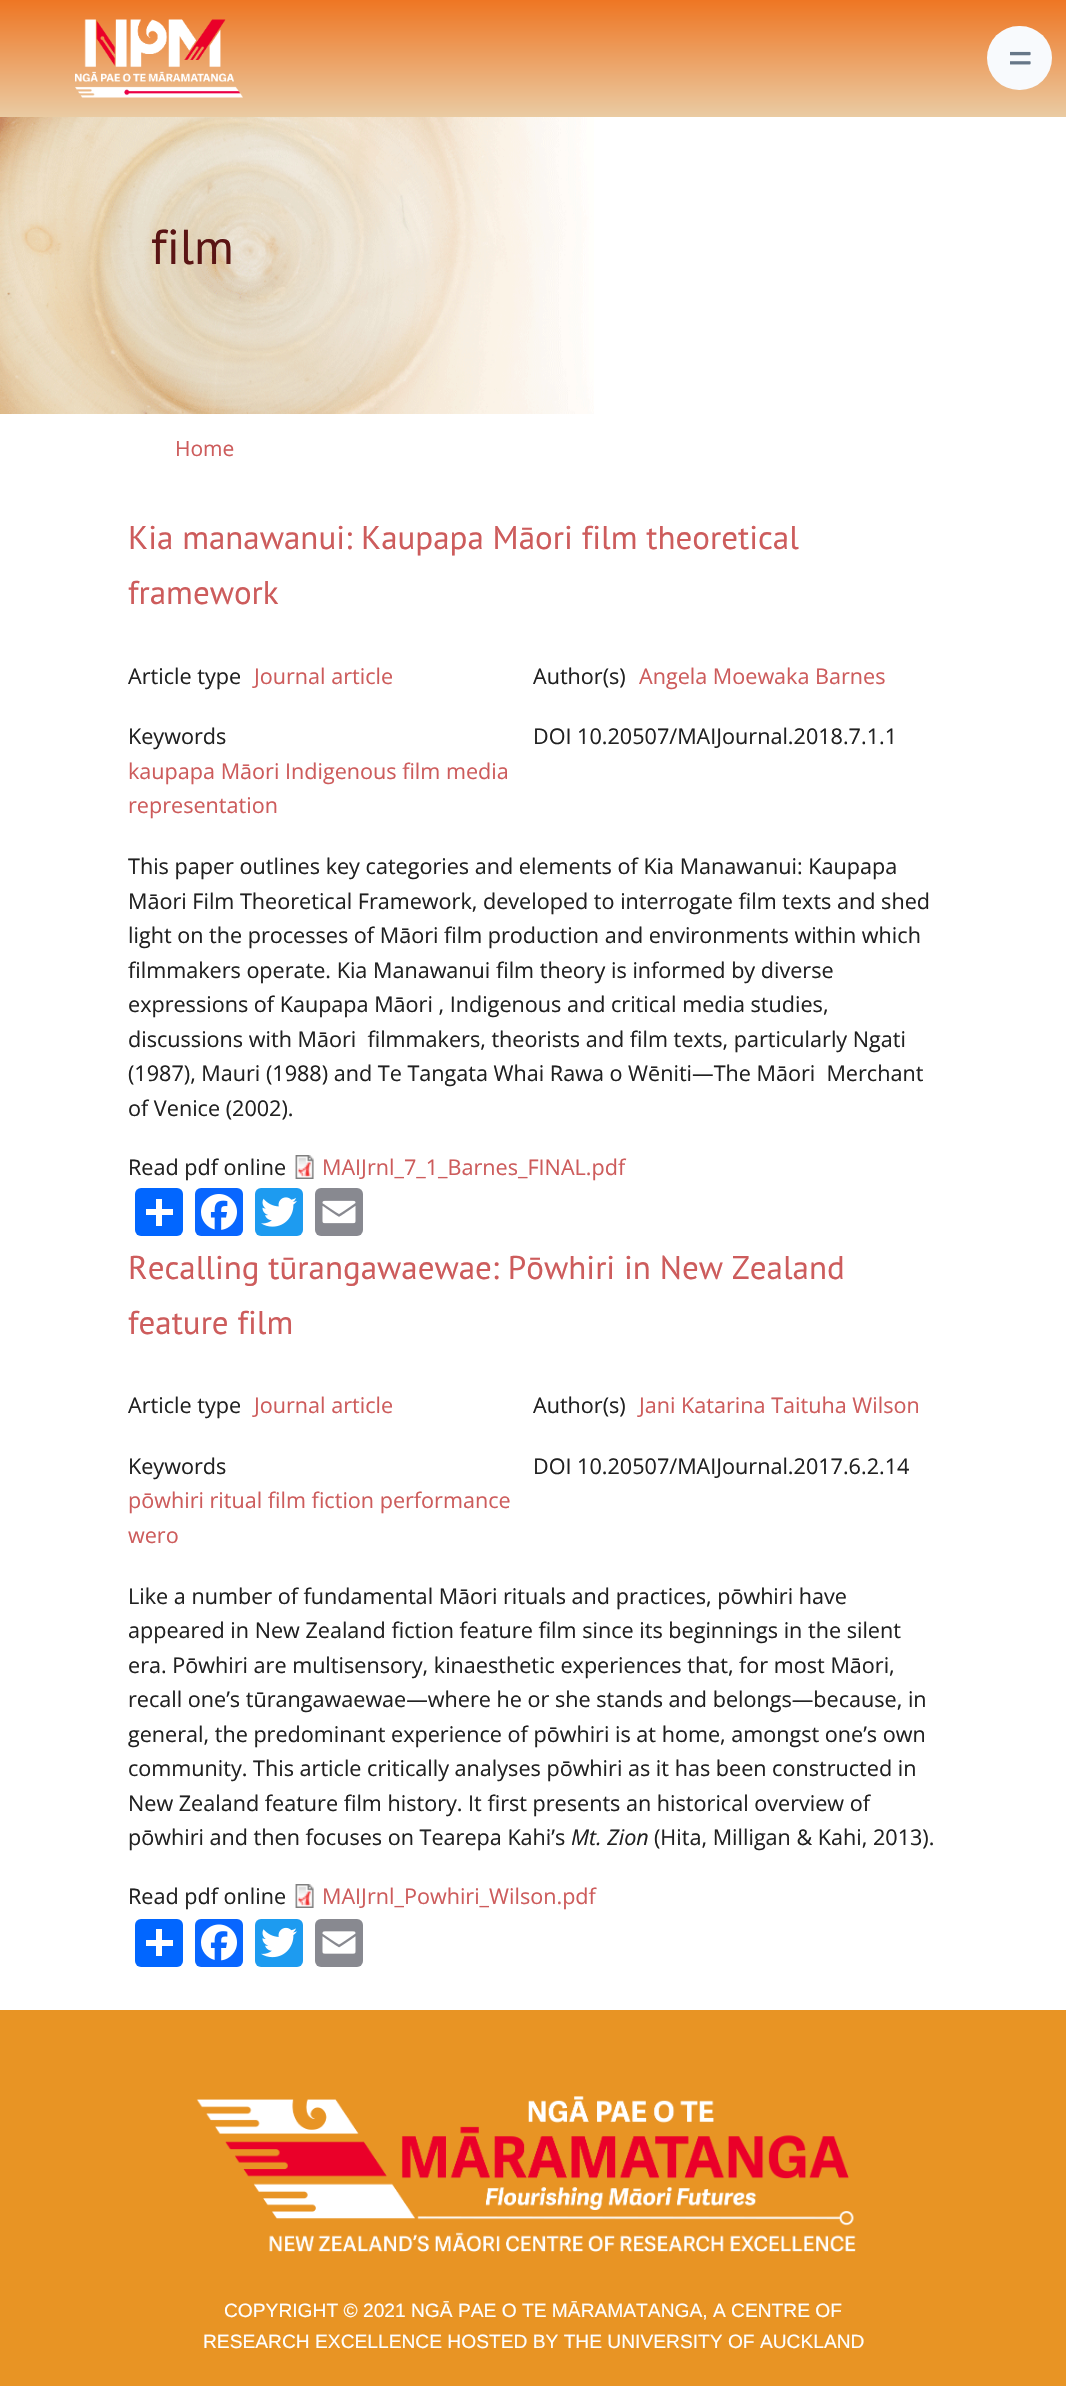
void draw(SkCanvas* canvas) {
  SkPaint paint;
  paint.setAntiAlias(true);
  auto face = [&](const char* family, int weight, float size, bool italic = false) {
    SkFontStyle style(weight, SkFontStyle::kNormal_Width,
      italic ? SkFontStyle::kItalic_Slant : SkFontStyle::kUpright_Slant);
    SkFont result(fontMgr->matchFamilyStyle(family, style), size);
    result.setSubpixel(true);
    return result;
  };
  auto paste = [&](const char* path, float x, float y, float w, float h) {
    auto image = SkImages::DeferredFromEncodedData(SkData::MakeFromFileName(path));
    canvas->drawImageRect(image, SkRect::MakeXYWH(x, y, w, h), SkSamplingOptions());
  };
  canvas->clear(0xffffffff);
  {
    const SkColor colors[] = {0xffee7623, 0xffeacba3};
    const float stops[] = {0, 1};
    const SkPoint ends[] = {{533, 0}, {533, 117}};
    paint.setShader(SkGradientShader::MakeLinear(ends, colors, stops, 2, SkTileMode::kClamp));
    paint.setAlpha(255);
  }
  canvas->drawRect(SkRect::MakeXYWH(0, 0, 1066, 117), paint);
  paste("img/1.png", 75, 19, 168, 79);
  paint.setShader(nullptr);
  paint.setColor(0xfff8fafd);
  canvas->drawRoundRect(SkRect::MakeXYWH(987, 26, 65, 64), 32, 32, paint);
  paste("img/2.png", 1010, 51, 21, 14);
  paste("img/3.png", 0, 117, 594, 297);
  paste("img/4.png", 295, 1155, 19, 24);
  paint.setColor(0xff0166ff);
  canvas->drawRoundRect(SkRect::MakeXYWH(135, 1188, 48, 48), 6, 6, paint);
  paint.setColor(0xffffffff);
  canvas->drawRect(SkRect::MakeXYWH(156, 1199, 6, 27), paint);
  canvas->drawRect(SkRect::MakeXYWH(146, 1209, 27, 6), paint);
  paint.setColor(0xff0866ff);
  canvas->drawRoundRect(SkRect::MakeXYWH(195, 1188, 48, 48), 6, 6, paint);
  paste("img/5.png", 201, 1194, 36, 36);
  paint.setColor(0xff1d9bf0);
  canvas->drawRoundRect(SkRect::MakeXYWH(255, 1188, 48, 48), 6, 6, paint);
  paste("img/6.png", 261, 1197, 36, 30);
  paint.setColor(0xff888990);
  canvas->drawRoundRect(SkRect::MakeXYWH(315, 1188, 48, 48), 6, 6, paint);
  paste("img/7.png", 322, 1200, 34, 24);
  paste("img/4.png", 295, 1884, 19, 24);
  paint.setColor(0xff0166ff);
  canvas->drawRoundRect(SkRect::MakeXYWH(135, 1919, 48, 48), 6, 6, paint);
  paint.setColor(0xffffffff);
  canvas->drawRect(SkRect::MakeXYWH(156, 1929, 6, 27), paint);
  canvas->drawRect(SkRect::MakeXYWH(146, 1940, 27, 6), paint);
  paint.setColor(0xff0866ff);
  canvas->drawRoundRect(SkRect::MakeXYWH(195, 1919, 48, 48), 6, 6, paint);
  paste("img/8.png", 201, 1924, 36, 37);
  paint.setColor(0xff1d9bf0);
  canvas->drawRoundRect(SkRect::MakeXYWH(255, 1919, 48, 48), 6, 6, paint);
  paste("img/9.png", 261, 1927, 36, 31);
  paint.setColor(0xff888990);
  canvas->drawRoundRect(SkRect::MakeXYWH(315, 1919, 48, 48), 6, 6, paint);
  paste("img/10.png", 322, 1931, 34, 23);
  paint.setColor(0xffe89424);
  canvas->drawRect(SkRect::MakeXYWH(0, 2010, 1066, 376), paint);
  paste("img/11.png", 196, 2096, 660, 156);
  auto f0 = face("PT Sans", 400, 49);
  paint.setColor(0xff5a1414);
  canvas->drawString("film", 151, 264, f0, paint);
  auto f1 = face("Open Sans", 400, 21);
  paint.setColor(0xffcd5c5c);
  canvas->drawString("Home", 175, 456, f1, paint);
  auto f2 = face("PT Sans", 400, 33);
  canvas->drawString("Kia manawanui: Kaupapa Māori film theoretical", 128, 549, f2, paint);
  canvas->drawString("framework", 128, 604, f2, paint);
  auto f3 = face("Open Sans", 400, 21.6f);
  paint.setColor(0xff212121);
  canvas->drawString("Article type", 128, 684, f3, paint);
  paint.setColor(0xffcd5c5c);
  canvas->drawString("Journal article", 254, 684, f3, paint);
  paint.setColor(0xff212121);
  canvas->drawString("Keywords", 128, 744, f3, paint);
  paint.setColor(0xffcd5c5c);
  canvas->drawString("kaupapa Māori Indigenous film media", 128, 779, f3, paint);
  canvas->drawString("representation", 128, 813, f3, paint);
  paint.setColor(0xff212121);
  canvas->drawString("Author(s)", 533, 684, f3, paint);
  paint.setColor(0xffcd5c5c);
  canvas->drawString("Angela Moewaka Barnes", 639, 684, f3, paint);
  paint.setColor(0xff212121);
  {
    const struct { const char* s; float x, y; } items[] = {
      {"DOI 10.20507/MAIJournal.2018.7.1.1", 533, 744},
      {"This paper outlines key categories and elements of Kia Manawanui: Kaupapa", 128, 874},
      {"Māori Film Theoretical Framework, developed to interrogate film texts and shed", 128, 909},
      {"light on the processes of Māori film production and environments within which", 128, 943},
      {"filmmakers operate. Kia Manawanui film theory is informed by diverse", 128, 978},
      {"expressions of Kaupapa Māori , Indigenous and critical media studies,", 128, 1012},
      {"discussions with Māori  filmmakers, theorists and film texts, particularly Ngati", 128, 1047},
      {"(1987), Mauri (1988) and Te Tangata Whai Rawa o Wēniti—The Māori  Merchant", 128, 1081},
      {"of Venice (2002).", 128, 1116},
      {"Read pdf online", 128, 1175},
    };
    for (auto [s, x, y] : items) {
      canvas->drawString(s, x, y, f3, paint);
    }
  }
  paint.setColor(0xffcd5c5c);
  canvas->drawString("MAIJrnl_7_1_Barnes_FINAL.pdf", 322, 1175, f3, paint);
  canvas->drawString("Recalling tūrangawaewae: Pōwhiri in New Zealand", 128, 1279, f2, paint);
  canvas->drawString("feature film", 128, 1334, f2, paint);
  paint.setColor(0xff212121);
  canvas->drawString("Article type", 128, 1413, f3, paint);
  paint.setColor(0xffcd5c5c);
  canvas->drawString("Journal article", 254, 1413, f3, paint);
  paint.setColor(0xff212121);
  canvas->drawString("Keywords", 128, 1474, f3, paint);
  paint.setColor(0xffcd5c5c);
  canvas->drawString("pōwhiri ritual film fiction performance", 128, 1508, f3, paint);
  canvas->drawString("wero", 128, 1543, f3, paint);
  paint.setColor(0xff212121);
  canvas->drawString("Author(s)", 533, 1413, f3, paint);
  paint.setColor(0xffcd5c5c);
  canvas->drawString("Jani Katarina Taituha Wilson", 639, 1413, f3, paint);
  paint.setColor(0xff212121);
  {
    const struct { const char* s; float x, y; } items[] = {
      {"DOI 10.20507/MAIJournal.2017.6.2.14", 533, 1474},
      {"Like a number of fundamental Māori rituals and practices, pōwhiri have", 128, 1604},
      {"appeared in New Zealand fiction feature film since its beginnings in the silent", 128, 1638},
      {"era. Pōwhiri are multisensory, kinaesthetic experiences that, for most Māori,", 128, 1673},
      {"recall one’s tūrangawaewae—where he or she stands and belongs—because, in", 128, 1707},
      {"general, the predominant experience of pōwhiri is at home, amongst one’s own", 128, 1742},
      {"community. This article critically analyses pōwhiri as it has been constructed in", 128, 1776},
      {"New Zealand feature film history. It first presents an historical overview of", 128, 1811},
      {"pōwhiri and then focuses on Tearepa Kahi’s", 128, 1845},
    };
    for (auto [s, x, y] : items) {
      canvas->drawString(s, x, y, f3, paint);
    }
  }
  auto f4 = face("Open Sans", 400, 21.6f, true);
  canvas->drawString("Mt. Zion", 571, 1845, f4, paint);
  canvas->drawString("(Hita, Milligan & Kahi, 2013).", 654, 1845, f3, paint);
  canvas->drawString("Read pdf online", 128, 1904, f3, paint);
  paint.setColor(0xffcd5c5c);
  canvas->drawString("MAIJrnl_Powhiri_Wilson.pdf", 322, 1904, f3, paint);
  auto f5 = face("Liberation Sans", 400, 19.2f);
  paint.setColor(0xffffffff);
  canvas->drawString("COPYRIGHT © 2021 NGĀ PAE O TE MĀRAMATANGA, A CENTRE OF", 224, 2317, f5, paint);
  canvas->drawString("RESEARCH EXCELLENCE HOSTED BY THE UNIVERSITY OF AUCKLAND", 203, 2348, f5, paint);
}
